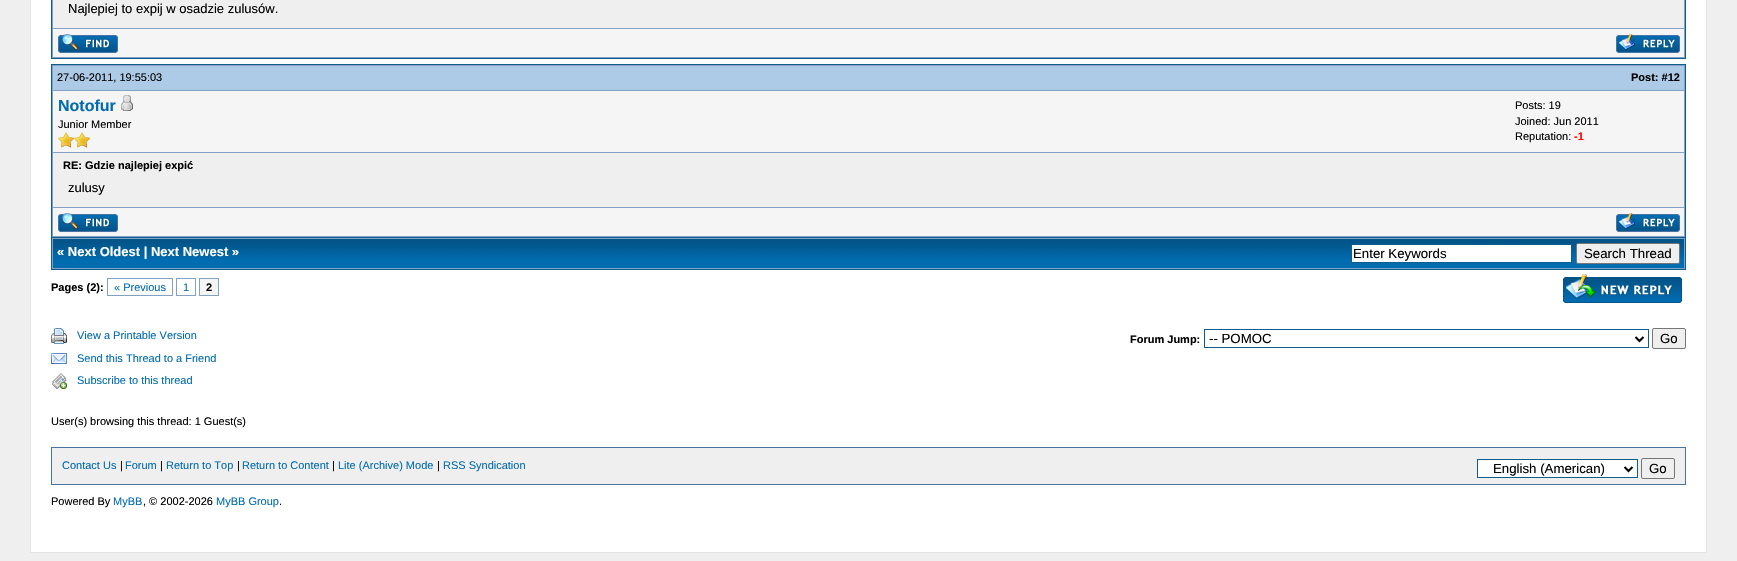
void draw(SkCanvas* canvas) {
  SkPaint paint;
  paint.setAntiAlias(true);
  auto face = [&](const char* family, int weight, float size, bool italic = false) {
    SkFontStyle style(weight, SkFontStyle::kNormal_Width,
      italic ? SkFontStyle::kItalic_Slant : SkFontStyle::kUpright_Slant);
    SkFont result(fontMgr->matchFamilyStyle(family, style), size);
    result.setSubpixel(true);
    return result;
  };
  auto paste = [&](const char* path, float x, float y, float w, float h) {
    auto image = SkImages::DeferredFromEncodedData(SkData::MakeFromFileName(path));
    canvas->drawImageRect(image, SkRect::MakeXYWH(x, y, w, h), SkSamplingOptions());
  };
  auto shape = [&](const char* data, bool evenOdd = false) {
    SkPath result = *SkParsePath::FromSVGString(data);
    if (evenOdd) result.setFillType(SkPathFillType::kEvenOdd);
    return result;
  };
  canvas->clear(0xffefefef);
  paint.setColor(0xffffffff);
  canvas->drawRect(SkRect::MakeXYWH(30.5f, -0.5f, 1676, 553), paint);
  paint.setStroke(true);
  paint.setStrokeWidth(1);
  paint.setColor(0xffe4e4e4);
  canvas->drawRect(SkRect::MakeXYWH(30.5f, -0.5f, 1676, 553), paint);
  paint.setStroke(false);
  {
    const struct { float x, y, w, h; SkColor color; } items[] = {
      {52, 0, 1633, 58, 0xff81a2c4},
      {1685, 0, 1, 59, 0xff0f5c8e},
      {51, 58, 1635, 1, 0xff0f5c8e},
      {51, 0, 1, 59, 0xff0f5c8e},
      {53, 0, 1631, 28, 0xffefefef},
      {53, 29, 1631, 28, 0xfff5f5f5},
    };
    for (auto [x, y, w, h, color] : items) {
      paint.setColor(color);
      canvas->drawRect(SkRect::MakeXYWH(x, y, w, h), paint);
    }
  }
  paste("img/1.png", 58, 34, 60, 19);
  paste("img/2.png", 1616, 34, 64, 19);
  paint.setColor(0xff81a2c4);
  canvas->drawRect(SkRect::MakeXYWH(51.5f, 64.5f, 1634, 173), paint);
  paint.setStroke(true);
  paint.setColor(0xff0f5c8e);
  canvas->drawRect(SkRect::MakeXYWH(51.5f, 64.5f, 1634, 173), paint);
  paint.setStroke(false);
  paint.setColor(0xffadcbe7);
  canvas->drawRect(SkRect::MakeXYWH(53, 66, 1631, 24), paint);
  paint.setColor(0xfff5f5f5);
  canvas->drawRect(SkRect::MakeXYWH(53, 91, 1631, 61), paint);
  paste("img/3.png", 121, 95, 12, 16);
  paste("img/4.png", 58, 132, 16, 16);
  paste("img/4.png", 74, 132, 16, 16);
  paint.setColor(0xffefefef);
  canvas->drawRect(SkRect::MakeXYWH(53, 153, 1631, 54), paint);
  paint.setColor(0xfff5f5f5);
  canvas->drawRect(SkRect::MakeXYWH(53, 208, 1631, 28), paint);
  paste("img/1.png", 58, 213, 60, 19);
  paste("img/2.png", 1616, 213, 64, 19);
  {
    const struct { float x, y, w, h; SkColor color; } items[] = {
      {52, 238, 1633, 31, 0xff81a2c4},
      {1685, 238, 1, 32, 0xff0f5c8e},
      {51, 269, 1635, 1, 0xff0f5c8e},
      {51, 238, 1, 32, 0xff0f5c8e},
      {53, 259, 1631, 9, 0xff026cb1},
    };
    for (auto [x, y, w, h, color] : items) {
      paint.setColor(color);
      canvas->drawRect(SkRect::MakeXYWH(x, y, w, h), paint);
    }
  }
  paste("img/5.png", 53, 239, 1631, 20);
  paint.setColor(0xffffffff);
  canvas->drawRect(SkRect::MakeXYWH(1351.5f, 244.5f, 220, 18), paint);
  paint.setStroke(true);
  paint.setColor(0xff0f5c8e);
  canvas->drawRect(SkRect::MakeXYWH(1351.5f, 244.5f, 220, 18), paint);
  paint.setStroke(false);
  paint.setColor(0xffefefef);
  canvas->drawRoundRect(SkRect::MakeXYWH(1576.5f, 243.5f, 103, 20), 1.5f, 1.5f, paint);
  paint.setStroke(true);
  paint.setColor(0xff767676);
  canvas->drawRoundRect(SkRect::MakeXYWH(1576.5f, 243.5f, 103, 20), 1.5f, 1.5f, paint);
  paint.setColor(0xff81a2c4);
  canvas->drawRect(SkRect::MakeXYWH(107.5f, 278.5f, 65, 17), paint);
  canvas->drawRect(SkRect::MakeXYWH(176.5f, 278.5f, 19, 17), paint);
  paint.setStroke(false);
  paint.setColor(0xfff5f5f5);
  canvas->drawRect(SkRect::MakeXYWH(199.5f, 278.5f, 19, 17), paint);
  paint.setStroke(true);
  paint.setColor(0xff81a2c4);
  canvas->drawRect(SkRect::MakeXYWH(199.5f, 278.5f, 19, 17), paint);
  paste("img/6.png", 1563, 274, 119, 29);
  paste("img/7.png", 51, 328, 16, 16);
  paste("img/8.png", 51, 353, 16, 11);
  paste("img/9.png", 52, 373, 15, 16);
  paint.setColor(0xff0f5c8e);
  canvas->drawRect(SkRect::MakeXYWH(1204.5f, 329.5f, 444, 18), paint);
  paint.setStrokeWidth(2);
  paint.setColor(0xff000000);
  canvas->drawPath(shape("M1635.5 337L1639.5 341L1643.5 337"), paint);
  paint.setStroke(false);
  paint.setColor(0xffefefef);
  canvas->drawRoundRect(SkRect::MakeXYWH(1652.5f, 328.5f, 33, 20), 1.5f, 1.5f, paint);
  paint.setStroke(true);
  paint.setStrokeWidth(1);
  paint.setColor(0xff767676);
  canvas->drawRoundRect(SkRect::MakeXYWH(1652.5f, 328.5f, 33, 20), 1.5f, 1.5f, paint);
  paint.setStroke(false);
  paint.setColor(0xffefefef);
  canvas->drawRect(SkRect::MakeXYWH(51.5f, 447.5f, 1634, 37), paint);
  paint.setStroke(true);
  paint.setColor(0xff4874a3);
  canvas->drawRect(SkRect::MakeXYWH(51.5f, 447.5f, 1634, 37), paint);
  paint.setStroke(false);
  paint.setColor(0xffffffff);
  canvas->drawRect(SkRect::MakeXYWH(1477.5f, 459.5f, 160, 18), paint);
  paint.setStroke(true);
  paint.setColor(0xff0f5c8e);
  canvas->drawRect(SkRect::MakeXYWH(1477.5f, 459.5f, 160, 18), paint);
  paint.setStrokeWidth(2);
  paint.setColor(0xff000000);
  canvas->drawPath(shape("M1624.5 467L1628.5 471L1632.5 467"), paint);
  paint.setStrokeWidth(1);
  paint.setColor(0xff767676);
  canvas->drawRoundRect(SkRect::MakeXYWH(1641.5f, 458.5f, 33, 20), 1.5f, 1.5f, paint);
  auto f0 = face("Liberation Sans", 400, 13);
  paint.setStroke(false);
  paint.setColor(0xff000000);
  canvas->drawString("Najlepiej to expij w osadzie zulusów.", 68, 13, f0, paint);
  auto f1 = face("Liberation Sans", 400, 11);
  canvas->drawString("27-06-2011, 19:55:03", 57, 81, f1, paint);
  auto f2 = face("Liberation Sans", 700, 11);
  canvas->drawString("Post: #12", 1631, 81, f2, paint);
  auto f3 = face("Liberation Sans", 700, 16);
  paint.setColor(0xff026cb1);
  canvas->drawString("Notofur", 58, 111, f3, paint);
  paint.setColor(0xff000000);
  {
    const struct { const char* s; float x, y; } items[] = {
      {"Junior Member", 58, 128},
      {"Posts: 19", 1515, 109},
      {"Joined: Jun 2011", 1515, 125},
      {"Reputation:", 1515, 140},
    };
    for (auto [s, x, y] : items) {
      canvas->drawString(s, x, y, f1, paint);
    }
  }
  paint.setColor(0xffff0000);
  canvas->drawString("-1", 1574, 140, f2, paint);
  paint.setColor(0xff000000);
  canvas->drawString("RE: Gdzie najlepiej expić", 63, 169, f2, paint);
  canvas->drawString("zulusy", 68, 192, f0, paint);
  auto f4 = face("Liberation Sans", 700, 13);
  paint.setColor(0xffffffff);
  canvas->drawString("« Next Oldest | Next Newest »", 57, 256, f4, paint);
  auto f5 = face("Liberation Sans", 400, 13.25f);
  paint.setColor(0xff000000);
  canvas->drawString("Enter Keywords", 1353, 258, f5, paint);
  canvas->drawString("Search Thread", 1584, 258, f5, paint);
  canvas->drawString("Pages (2):", 51, 291, f2, paint);
  paint.setColor(0xff026cb1);
  canvas->drawString("« Previous", 114, 291, f1, paint);
  canvas->drawString("1", 183, 291, f1, paint);
  paint.setColor(0xff000000);
  canvas->drawString("2", 206, 291, f2, paint);
  paint.setColor(0xff026cb1);
  {
    const struct { const char* s; float x, y; } items[] = {
      {"View a Printable Version", 77, 339},
      {"Send this Thread to a Friend", 77, 362},
      {"Subscribe to this thread", 77, 384},
    };
    for (auto [s, x, y] : items) {
      canvas->drawString(s, x, y, f1, paint);
    }
  }
  paint.setColor(0xff000000);
  canvas->drawString("Forum Jump:", 1130, 343, f2, paint);
  canvas->drawString("-- POMOC", 1209, 343, f5, paint);
  canvas->drawString("Go", 1660, 343, f5, paint);
  canvas->drawString("User(s) browsing this thread: 1 Guest(s)", 51, 425, f1, paint);
  paint.setColor(0xff026cb1);
  canvas->drawString("Contact Us", 62, 469, f1, paint);
  paint.setColor(0xff000000);
  canvas->drawString("|", 120, 469, f1, paint);
  paint.setColor(0xff026cb1);
  canvas->drawString("Forum", 125, 469, f1, paint);
  paint.setColor(0xff000000);
  canvas->drawString("|", 160, 469, f1, paint);
  paint.setColor(0xff026cb1);
  canvas->drawString("Return to Top", 166, 469, f1, paint);
  paint.setColor(0xff000000);
  canvas->drawString("|", 237, 469, f1, paint);
  paint.setColor(0xff026cb1);
  canvas->drawString("Return to Content", 242, 469, f1, paint);
  paint.setColor(0xff000000);
  canvas->drawString("|", 332, 469, f1, paint);
  paint.setColor(0xff026cb1);
  canvas->drawString("Lite (Archive) Mode", 338, 469, f1, paint);
  paint.setColor(0xff000000);
  canvas->drawString("|", 437, 469, f1, paint);
  paint.setColor(0xff026cb1);
  canvas->drawString("RSS Syndication", 443, 469, f1, paint);
  paint.setColor(0xff000000);
  canvas->drawString("English (American)", 1493, 473, f5, paint);
  canvas->drawString("Go", 1649, 473, f5, paint);
  canvas->drawString("Powered By", 51, 505, f1, paint);
  paint.setColor(0xff026cb1);
  canvas->drawString("MyBB", 113, 505, f1, paint);
  paint.setColor(0xff000000);
  canvas->drawString(", © 2002-2026", 143, 505, f1, paint);
  paint.setColor(0xff026cb1);
  canvas->drawString("MyBB Group", 216, 505, f1, paint);
  paint.setColor(0xff000000);
  canvas->drawString(".", 279, 505, f1, paint);
}
